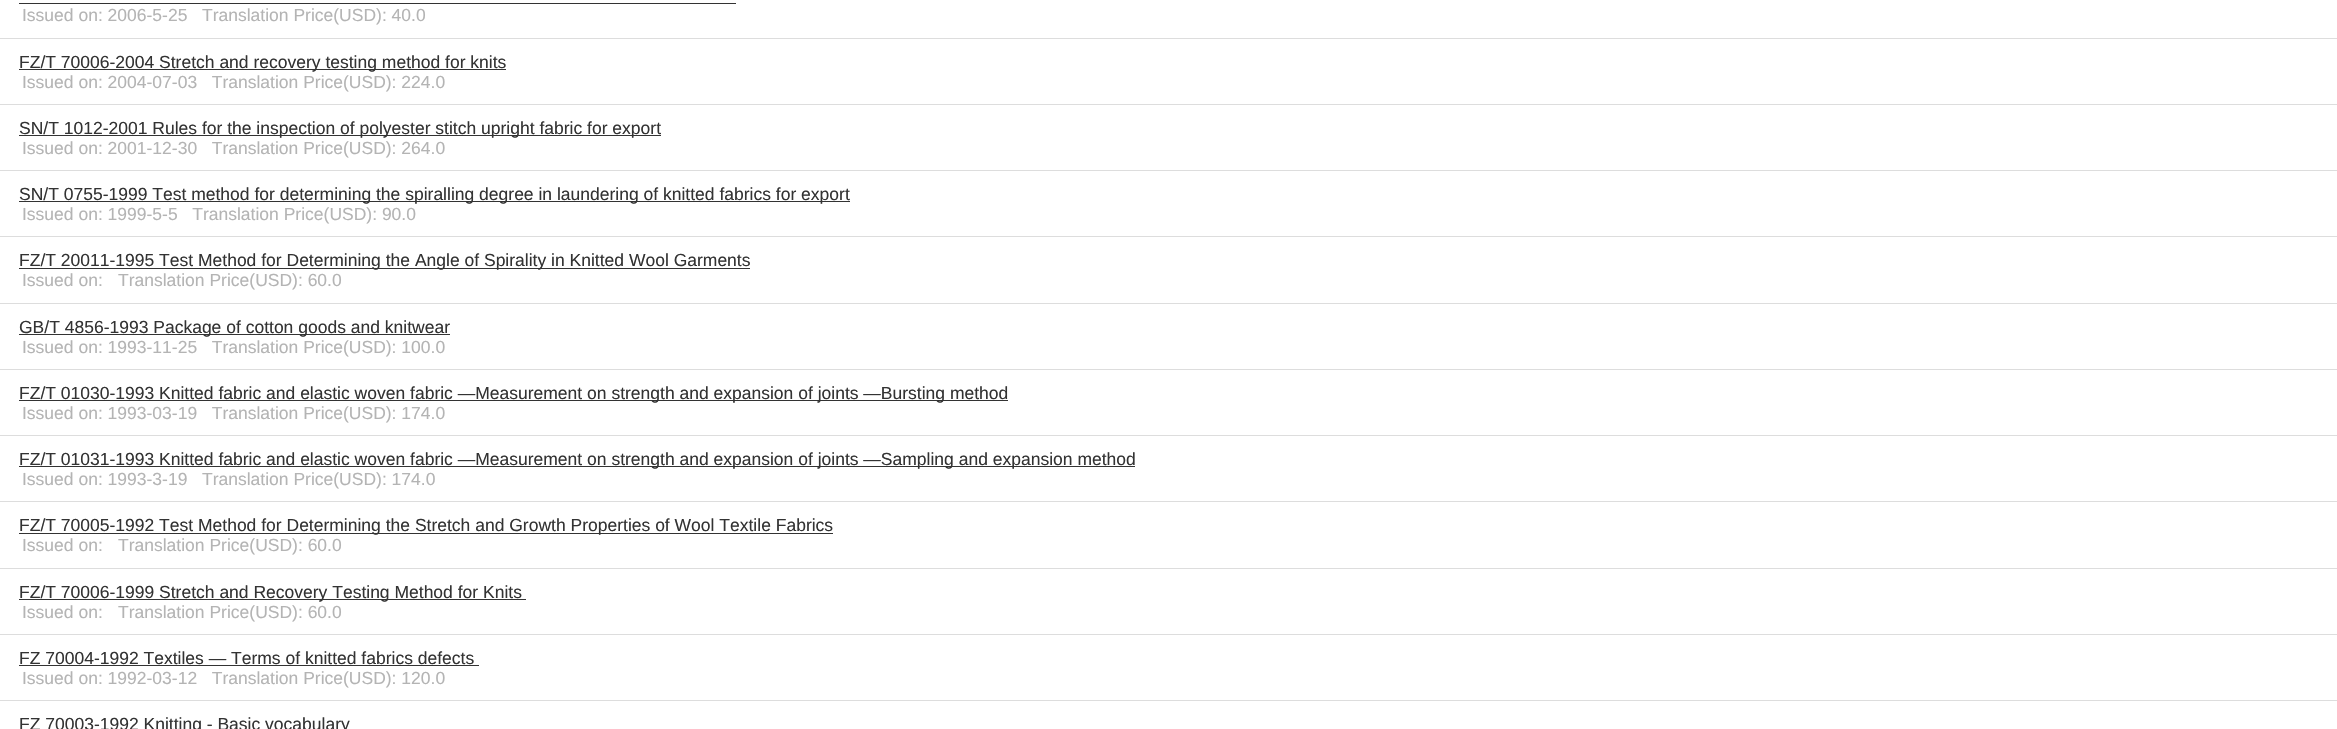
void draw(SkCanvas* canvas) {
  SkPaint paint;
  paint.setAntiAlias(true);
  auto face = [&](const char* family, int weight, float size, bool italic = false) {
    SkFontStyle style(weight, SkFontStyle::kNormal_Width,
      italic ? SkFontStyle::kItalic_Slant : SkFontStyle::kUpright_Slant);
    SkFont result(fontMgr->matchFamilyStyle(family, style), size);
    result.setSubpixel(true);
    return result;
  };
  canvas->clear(0xffffffff);
  {
    const struct { float x, y, w, h; SkColor color; } items[] = {
      {0, 38, 2337, 1, 0xffdddddd},
      {19, 3, 717, 1, 0xff333333},
      {0, 104, 2337, 1, 0xffdddddd},
      {19, 69, 487, 1, 0xff333333},
      {0, 170, 2337, 1, 0xffdddddd},
      {19, 135, 642, 1, 0xff333333},
      {0, 236, 2337, 1, 0xffdddddd},
      {19, 201, 831, 1, 0xff333333},
      {0, 303, 2337, 1, 0xffdddddd},
      {19, 268, 731, 1, 0xff333333},
      {0, 369, 2337, 1, 0xffdddddd},
      {19, 334, 431, 1, 0xff333333},
      {0, 435, 2337, 1, 0xffdddddd},
      {19, 400, 989, 1, 0xff333333},
      {0, 501, 2337, 1, 0xffdddddd},
      {19, 466, 1116, 1, 0xff333333},
      {0, 568, 2337, 1, 0xffdddddd},
      {19, 533, 814, 1, 0xff333333},
      {0, 634, 2337, 1, 0xffdddddd},
      {19, 599, 507, 1, 0xff333333},
      {0, 700, 2337, 1, 0xffdddddd},
      {19, 665, 460, 1, 0xff333333},
    };
    for (auto [x, y, w, h, color] : items) {
      paint.setColor(color);
      canvas->drawRect(SkRect::MakeXYWH(x, y, w, h), paint);
    }
  }
  auto f0 = face("Liberation Sans", 400, 17.5f);
  paint.setColor(0xffb4b4b4);
  canvas->drawString("Issued on: 2006-5-25   Translation Price(USD): 40.0", 22, 21, f0, paint);
  paint.setColor(0xff333333);
  canvas->drawString("FZ/T 70006-2004 Stretch and recovery testing method for knits", 19, 68, f0, paint);
  paint.setColor(0xffb4b4b4);
  canvas->drawString("Issued on: 2004-07-03   Translation Price(USD): 224.0", 22, 88, f0, paint);
  paint.setColor(0xff333333);
  canvas->drawString("SN/T 1012-2001 Rules for the inspection of polyester stitch upright fabric for export", 19, 134, f0, paint);
  paint.setColor(0xffb4b4b4);
  canvas->drawString("Issued on: 2001-12-30   Translation Price(USD): 264.0", 22, 154, f0, paint);
  paint.setColor(0xff333333);
  canvas->drawString("SN/T 0755-1999 Test method for determining the spiralling degree in laundering of knitted fabrics for export", 19, 200, f0, paint);
  paint.setColor(0xffb4b4b4);
  canvas->drawString("Issued on: 1999-5-5   Translation Price(USD): 90.0", 22, 220, f0, paint);
  paint.setColor(0xff333333);
  canvas->drawString("FZ/T 20011-1995 Test Method for Determining the Angle of Spirality in Knitted Wool Garments", 19, 266, f0, paint);
  paint.setColor(0xffb4b4b4);
  canvas->drawString("Issued on:", 22, 286, f0, paint);
  canvas->drawString("Translation Price(USD): 60.0", 118, 286, f0, paint);
  paint.setColor(0xff333333);
  canvas->drawString("GB/T 4856-1993 Package of cotton goods and knitwear", 19, 333, f0, paint);
  paint.setColor(0xffb4b4b4);
  canvas->drawString("Issued on: 1993-11-25   Translation Price(USD): 100.0", 22, 353, f0, paint);
  paint.setColor(0xff333333);
  canvas->drawString("FZ/T 01030-1993 Knitted fabric and elastic woven fabric —Measurement on strength and expansion of joints —Bursting method", 19, 399, f0, paint);
  paint.setColor(0xffb4b4b4);
  canvas->drawString("Issued on: 1993-03-19   Translation Price(USD): 174.0", 22, 419, f0, paint);
  paint.setColor(0xff333333);
  canvas->drawString("FZ/T 01031-1993 Knitted fabric and elastic woven fabric —Measurement on strength and expansion of joints —Sampling and expansion method", 19, 465, f0, paint);
  paint.setColor(0xffb4b4b4);
  canvas->drawString("Issued on: 1993-3-19   Translation Price(USD): 174.0", 22, 485, f0, paint);
  paint.setColor(0xff333333);
  canvas->drawString("FZ/T 70005-1992 Test Method for Determining the Stretch and Growth Properties of Wool Textile Fabrics", 19, 531, f0, paint);
  paint.setColor(0xffb4b4b4);
  canvas->drawString("Issued on:", 22, 551, f0, paint);
  canvas->drawString("Translation Price(USD): 60.0", 118, 551, f0, paint);
  paint.setColor(0xff333333);
  canvas->drawString("FZ/T 70006-1999 Stretch and Recovery Testing Method for Knits", 19, 598, f0, paint);
  paint.setColor(0xffb4b4b4);
  canvas->drawString("Issued on:", 22, 618, f0, paint);
  canvas->drawString("Translation Price(USD): 60.0", 118, 618, f0, paint);
  paint.setColor(0xff333333);
  canvas->drawString("FZ 70004-1992 Textiles — Terms of knitted fabrics defects", 19, 664, f0, paint);
  paint.setColor(0xffb4b4b4);
  canvas->drawString("Issued on: 1992-03-12   Translation Price(USD): 120.0", 22, 684, f0, paint);
  paint.setColor(0xff333333);
  canvas->drawString("FZ 70003-1992 Knitting - Basic vocabulary", 19, 730, f0, paint);
}
